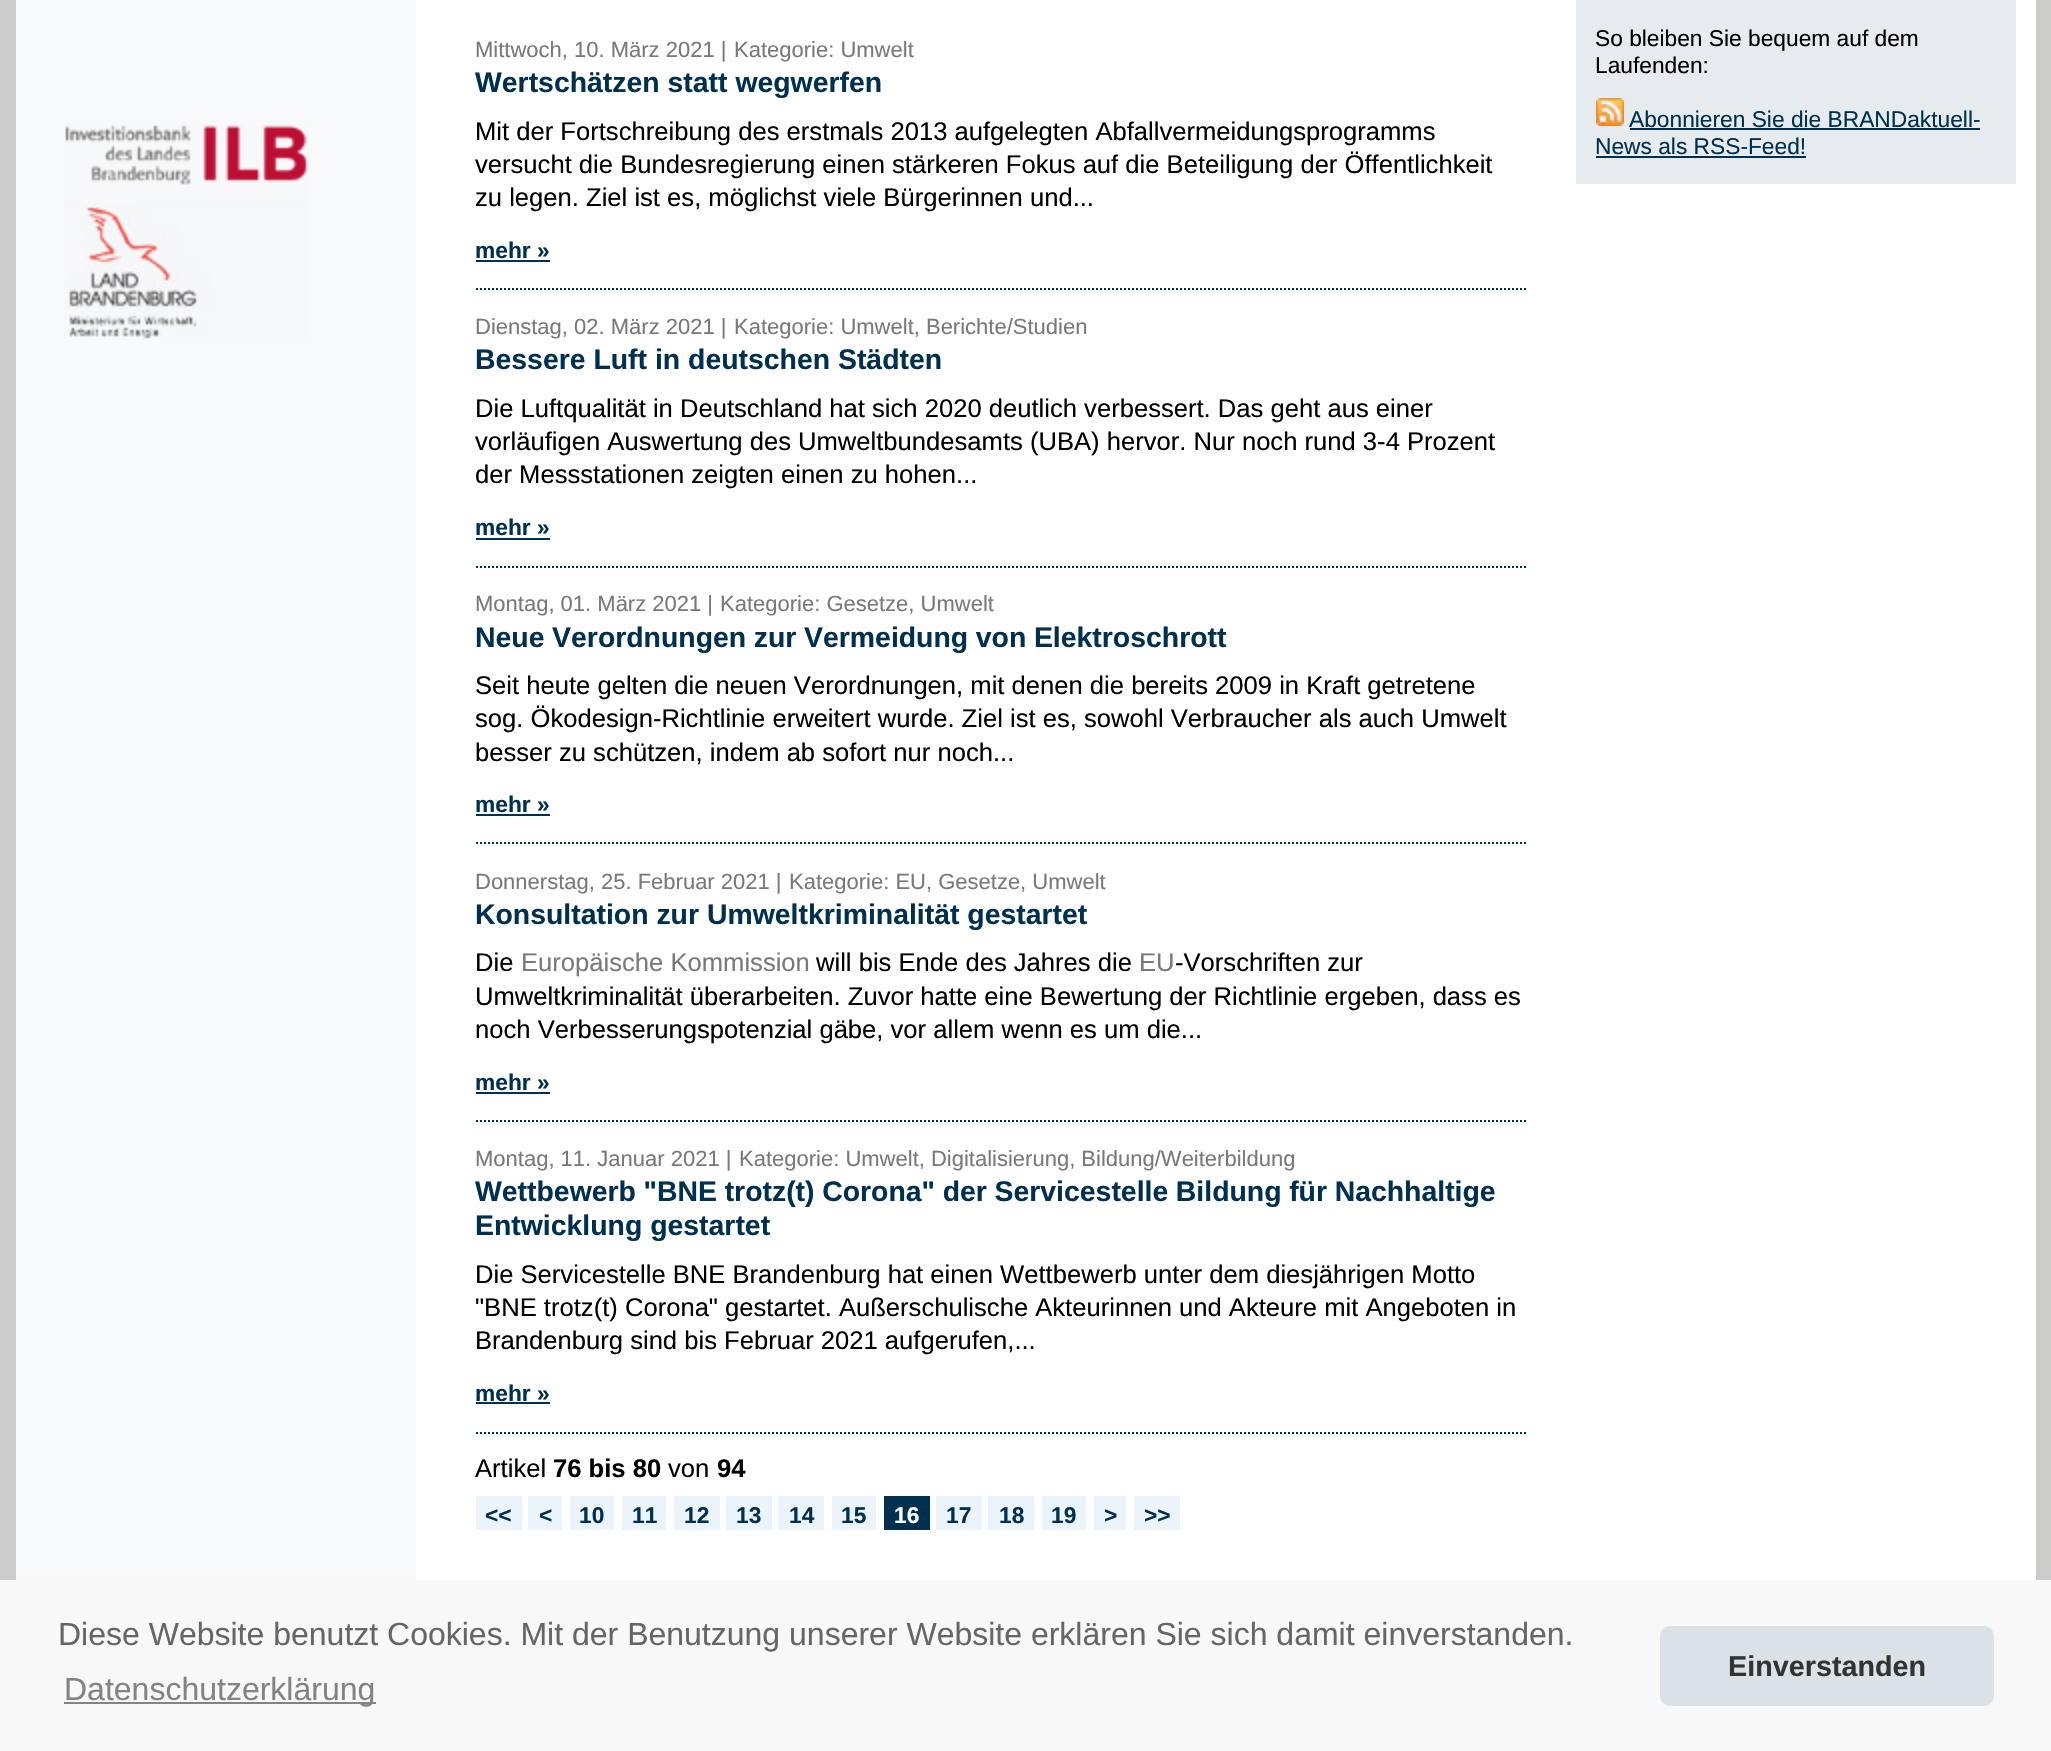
void draw(SkCanvas* canvas) {
  SkPaint paint;
  paint.setAntiAlias(true);
  auto face = [&](const char* family, int weight, float size, bool italic = false) {
    SkFontStyle style(weight, SkFontStyle::kNormal_Width,
      italic ? SkFontStyle::kItalic_Slant : SkFontStyle::kUpright_Slant);
    SkFont result(fontMgr->matchFamilyStyle(family, style), size);
    result.setSubpixel(true);
    return result;
  };
  auto writeSpaced = [&](const char* s, float x, float y, const SkFont& font, const SkPaint& ink, float letter, float word) {
    std::vector<SkGlyphID> glyphs(font.countText(s, strlen(s), SkTextEncoding::kUTF8));
    std::vector<float> xs(glyphs.size());
    font.textToGlyphs(s, strlen(s), SkTextEncoding::kUTF8, glyphs);
    font.getXPos(glyphs, xs, x);
    float extra = 0;
    for (size_t i = 0; i < glyphs.size(); i++) {
      xs[i] += extra;
      extra += letter + word * (glyphs[i] == font.unicharToGlyph(' '));
    }
    canvas->drawTextBlob(SkTextBlob::MakeFromPosHGlyphs(glyphs, xs, y, font), 0, 0, ink);
  };
  auto paste = [&](const char* path, float x, float y, float w, float h) {
    auto image = SkImages::DeferredFromEncodedData(SkData::MakeFromFileName(path));
    canvas->drawImageRect(image, SkRect::MakeXYWH(x, y, w, h), SkSamplingOptions());
  };
  auto shape = [&](const char* data, bool evenOdd = false) {
    SkPath result = *SkParsePath::FromSVGString(data);
    if (evenOdd) result.setFillType(SkPathFillType::kEvenOdd);
    return result;
  };
  canvas->clear(0xffcccdcb);
  paint.setColor(0xffffffff);
  canvas->drawRect(SkRect::MakeXYWH(416, 0, 1620, 1580), paint);
  paint.setColor(0xfff8f9fa);
  canvas->drawRect(SkRect::MakeXYWH(16, 0, 400, 1580), paint);
  paste("img/1.png", 65, 125, 242, 214);
  paint.setColor(0xff003050);
  canvas->drawRect(SkRect::MakeXYWH(476, 260, 74, 2), paint);
  paint.setStroke(true);
  paint.setStrokeWidth(2);
  paint.setPathEffect(SkDashPathEffect::Make({{2, 2}}, 0));
  canvas->drawPath(shape("M476 289H1526"), paint);
  paint.setPathEffect(nullptr);
  paint.setStroke(false);
  canvas->drawRect(SkRect::MakeXYWH(476, 538, 74, 2), paint);
  paint.setStroke(true);
  paint.setPathEffect(SkDashPathEffect::Make({{2, 2}}, 0));
  canvas->drawPath(shape("M476 567H1526"), paint);
  paint.setPathEffect(nullptr);
  paint.setStroke(false);
  canvas->drawRect(SkRect::MakeXYWH(476, 814, 74, 2), paint);
  paint.setStroke(true);
  paint.setPathEffect(SkDashPathEffect::Make({{2, 2}}, 0));
  canvas->drawPath(shape("M476 843H1526"), paint);
  paint.setPathEffect(nullptr);
  paint.setStroke(false);
  canvas->drawRect(SkRect::MakeXYWH(476, 1092, 74, 2), paint);
  paint.setStroke(true);
  paint.setPathEffect(SkDashPathEffect::Make({{2, 2}}, 0));
  canvas->drawPath(shape("M476 1121H1526"), paint);
  paint.setPathEffect(nullptr);
  paint.setStroke(false);
  canvas->drawRect(SkRect::MakeXYWH(476, 1402, 74, 2), paint);
  paint.setStroke(true);
  paint.setPathEffect(SkDashPathEffect::Make({{2, 2}}, 0));
  canvas->drawPath(shape("M476 1433H1526"), paint);
  paint.setPathEffect(nullptr);
  paint.setStroke(false);
  {
    const struct { float x, y, w, h; SkColor color; } items[] = {
      {476, 1496, 46, 34, 0xffebf3fb},
      {528, 1496, 34, 34, 0xffebf3fb},
      {570, 1496, 44, 34, 0xffebf3fb},
      {622, 1496, 44, 34, 0xffebf3fb},
      {674, 1496, 46, 34, 0xffebf3fb},
      {726, 1496, 46, 34, 0xffebf3fb},
      {778, 1496, 46, 34, 0xffebf3fb},
      {832, 1496, 44, 34, 0xffebf3fb},
      {884, 1496, 46, 34, 0xff003050},
      {936, 1496, 46, 34, 0xffebf3fb},
      {988, 1496, 46, 34, 0xffebf3fb},
      {1042, 1496, 44, 34, 0xffebf3fb},
      {1094, 1496, 32, 34, 0xffebf3fb},
      {1134, 1496, 46, 34, 0xffebf3fb},
      {1576, 0, 440, 184, 0xffe6ebee},
    };
    for (auto [x, y, w, h, color] : items) {
      paint.setColor(color);
      canvas->drawRect(SkRect::MakeXYWH(x, y, w, h), paint);
    }
  }
  paste("img/2.png", 1596, 98, 28, 28);
  {
    const struct { float x, y, w, h; SkColor color; } items[] = {
      {1630, 128, 350, 2, 0xff003050},
      {1596, 156, 210, 2, 0xff003050},
      {0, 1580, 2051, 171, 0xfff8f8f8},
      {64, 1702, 312, 2, 0xff838383},
    };
    for (auto [x, y, w, h, color] : items) {
      paint.setColor(color);
      canvas->drawRect(SkRect::MakeXYWH(x, y, w, h), paint);
    }
  }
  paint.setColor(0xffdae2e8);
  canvas->drawRoundRect(SkRect::MakeXYWH(1660, 1626, 334, 80), 10, 10, paint);
  auto f0 = face("Liberation Sans", 400, 22);
  paint.setColor(0xff797979);
  canvas->drawString("Mittwoch, 10. März 2021 |", 475, 57, f0, paint);
  canvas->drawString("Kategorie: Umwelt", 734, 57, f0, paint);
  auto f1 = face("Liberation Sans", 700, 28.4f);
  paint.setColor(0xff003050);
  canvas->drawString("Wertschätzen statt wegwerfen", 475, 92, f1, paint);
  auto f2 = face("Liberation Sans", 400, 25.6f);
  paint.setColor(0xff000000);
  {
    const struct { const char* s; float x, y; } items[] = {
      {"Mit der Fortschreibung des erstmals 2013 aufgelegten Abfallvermeidungsprogramms", 475, 140},
      {"versucht die Bundesregierung einen stärkeren Fokus auf die Beteiligung der Öffentlichkeit", 475, 173},
      {"zu legen. Ziel ist es, möglichst viele Bürgerinnen und...", 475, 206},
    };
    for (auto [s, x, y] : items) {
      canvas->drawString(s, x, y, f2, paint);
    }
  }
  auto f3 = face("Liberation Sans", 700, 22.75f);
  paint.setColor(0xff003050);
  canvas->drawString("mehr »", 475, 258, f3, paint);
  paint.setColor(0xff797979);
  canvas->drawString("Dienstag, 02. März 2021 |", 475, 334, f0, paint);
  canvas->drawString("Kategorie: Umwelt, Berichte/Studien", 734, 334, f0, paint);
  paint.setColor(0xff003050);
  canvas->drawString("Bessere Luft in deutschen Städten", 475, 369, f1, paint);
  paint.setColor(0xff000000);
  {
    const struct { const char* s; float x, y; } items[] = {
      {"Die Luftqualität in Deutschland hat sich 2020 deutlich verbessert. Das geht aus einer", 475, 417},
      {"vorläufigen Auswertung des Umweltbundesamts (UBA) hervor. Nur noch rund 3-4 Prozent", 475, 450},
      {"der Messstationen zeigten einen zu hohen...", 475, 483},
    };
    for (auto [s, x, y] : items) {
      canvas->drawString(s, x, y, f2, paint);
    }
  }
  paint.setColor(0xff003050);
  canvas->drawString("mehr »", 475, 535, f3, paint);
  paint.setColor(0xff797979);
  canvas->drawString("Montag, 01. März 2021 |", 475, 611, f0, paint);
  canvas->drawString("Kategorie: Gesetze, Umwelt", 720, 611, f0, paint);
  paint.setColor(0xff003050);
  writeSpaced("Neue Verordnungen zur Vermeidung von Elektroschrott", 475, 647, f1, paint, 0, -0.25f);
  paint.setColor(0xff000000);
  {
    const struct { const char* s; float x, y; } items[] = {
      {"Seit heute gelten die neuen Verordnungen, mit denen die bereits 2009 in Kraft getretene", 475, 694},
      {"sog. Ökodesign-Richtlinie erweitert wurde. Ziel ist es, sowohl Verbraucher als auch Umwelt", 475, 727},
      {"besser zu schützen, indem ab sofort nur noch...", 475, 761},
    };
    for (auto [s, x, y] : items) {
      canvas->drawString(s, x, y, f2, paint);
    }
  }
  paint.setColor(0xff003050);
  canvas->drawString("mehr »", 475, 812, f3, paint);
  paint.setColor(0xff797979);
  canvas->drawString("Donnerstag, 25. Februar 2021 |", 475, 889, f0, paint);
  canvas->drawString("Kategorie: EU, Gesetze, Umwelt", 789, 889, f0, paint);
  paint.setColor(0xff003050);
  canvas->drawString("Konsultation zur Umweltkriminalität gestartet", 475, 924, f1, paint);
  paint.setColor(0xff000000);
  canvas->drawString("Die", 475, 971, f2, paint);
  paint.setColor(0xff797979);
  canvas->drawString("Europäische Kommission", 521, 971, f2, paint);
  paint.setColor(0xff000000);
  canvas->drawString("will bis Ende des Jahres die", 816, 971, f2, paint);
  paint.setColor(0xff797979);
  canvas->drawString("EU", 1139, 971, f2, paint);
  paint.setColor(0xff000000);
  {
    const struct { const char* s; float x, y; } items[] = {
      {"-Vorschriften zur", 1175, 971},
      {"Umweltkriminalität überarbeiten. Zuvor hatte eine Bewertung der Richtlinie ergeben, dass es", 475, 1005},
      {"noch Verbesserungspotenzial gäbe, vor allem wenn es um die...", 475, 1038},
    };
    for (auto [s, x, y] : items) {
      canvas->drawString(s, x, y, f2, paint);
    }
  }
  paint.setColor(0xff003050);
  canvas->drawString("mehr »", 475, 1090, f3, paint);
  paint.setColor(0xff797979);
  canvas->drawString("Montag, 11. Januar 2021 |", 475, 1166, f0, paint);
  canvas->drawString("Kategorie: Umwelt, Digitalisierung, Bildung/Weiterbildung", 739, 1166, f0, paint);
  paint.setColor(0xff003050);
  writeSpaced("Wettbewerb \"BNE trotz(t) Corona\" der Servicestelle Bildung für Nachhaltige", 475, 1201, f1, paint, 0, -0.25f);
  canvas->drawString("Entwicklung gestartet", 475, 1235, f1, paint);
  paint.setColor(0xff000000);
  {
    const struct { const char* s; float x, y; } items[] = {
      {"Die Servicestelle BNE Brandenburg hat einen Wettbewerb unter dem diesjährigen Motto", 475, 1283},
      {"\"BNE trotz(t) Corona\" gestartet. Außerschulische Akteurinnen und Akteure mit Angeboten in", 475, 1316},
      {"Brandenburg sind bis Februar 2021 aufgerufen,...", 475, 1349},
    };
    for (auto [s, x, y] : items) {
      canvas->drawString(s, x, y, f2, paint);
    }
  }
  paint.setColor(0xff003050);
  canvas->drawString("mehr »", 475, 1401, f3, paint);
  paint.setColor(0xff000000);
  canvas->drawString("Artikel", 475, 1477, f2, paint);
  auto f4 = face("Liberation Sans", 700, 25.6f);
  canvas->drawString("76 bis 80", 553, 1477, f4, paint);
  canvas->drawString("von", 668, 1477, f2, paint);
  canvas->drawString("94", 717, 1477, f4, paint);
  paint.setColor(0xff003050);
  {
    const struct { const char* s; float x, y; } items[] = {
      {"<<", 485, 1523},
      {"<", 539, 1523},
      {"10", 579, 1523},
      {"11", 632, 1523},
      {"12", 684, 1523},
      {"13", 736, 1523},
      {"14", 789, 1523},
      {"15", 841, 1523},
    };
    for (auto [s, x, y] : items) {
      canvas->drawString(s, x, y, f3, paint);
    }
  }
  paint.setColor(0xffffffff);
  canvas->drawString("16", 894, 1523, f3, paint);
  paint.setColor(0xff003050);
  {
    const struct { const char* s; float x, y; } items[] = {
      {"17", 946, 1523},
      {"18", 999, 1523},
      {"19", 1051, 1523},
      {">", 1104, 1523},
      {">>", 1144, 1523},
    };
    for (auto [s, x, y] : items) {
      canvas->drawString(s, x, y, f3, paint);
    }
  }
  auto f5 = face("Liberation Sans", 400, 22.75f);
  paint.setColor(0xff000000);
  canvas->drawString("So bleiben Sie bequem auf dem", 1595, 46, f5, paint);
  canvas->drawString("Laufenden:", 1595, 73, f5, paint);
  paint.setColor(0xff003050);
  canvas->drawString("Abonnieren Sie die BRANDaktuell-", 1629, 127, f5, paint);
  canvas->drawString("News als RSS-Feed!", 1595, 154, f5, paint);
  auto f6 = face("Liberation Sans", 400, 32);
  paint.setColor(0xff666666);
  canvas->drawString("Diese Website benutzt Cookies. Mit der Benutzung unserer Website erklären Sie sich damit einverstanden.", 58, 1645, f6, paint);
  paint.setColor(0xff838383);
  canvas->drawString("Datenschutzerklärung", 64, 1700, f6, paint);
  auto f7 = face("Liberation Sans", 700, 28.75f);
  paint.setColor(0xff333333);
  canvas->drawString("Einverstanden", 1728, 1676, f7, paint);
}
